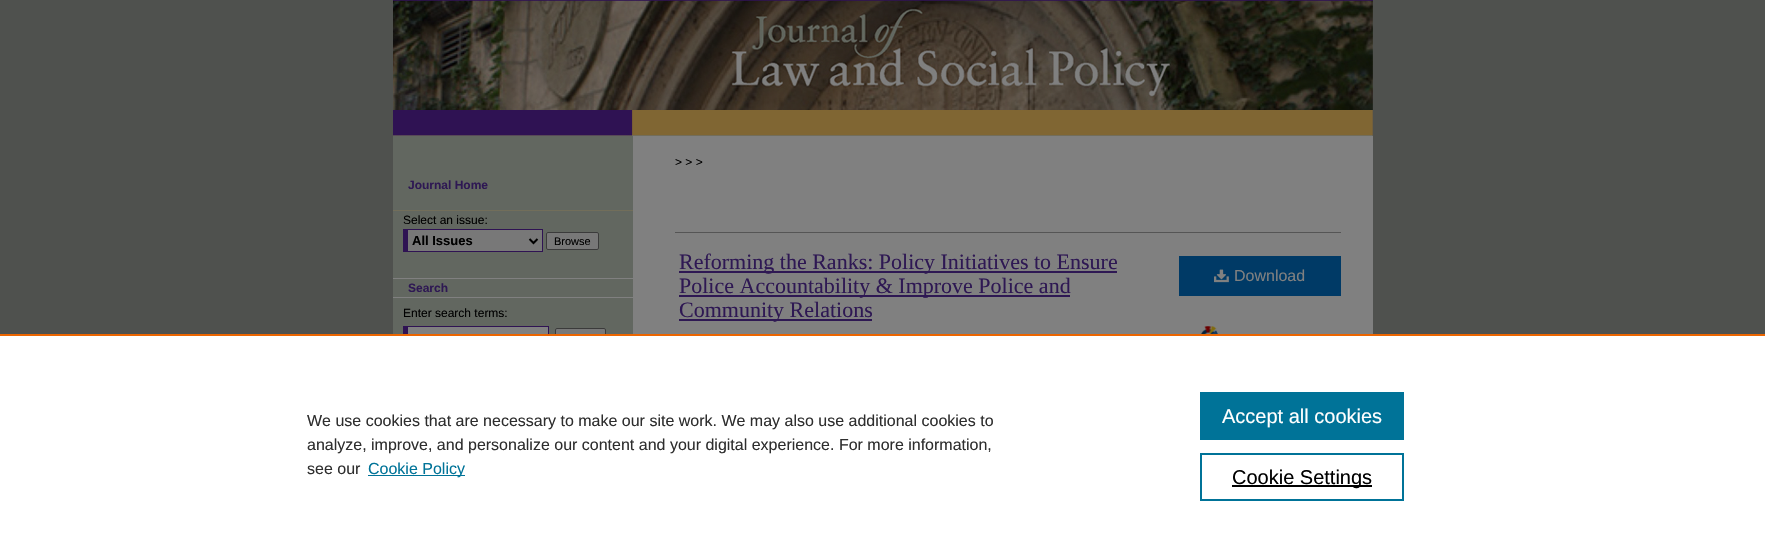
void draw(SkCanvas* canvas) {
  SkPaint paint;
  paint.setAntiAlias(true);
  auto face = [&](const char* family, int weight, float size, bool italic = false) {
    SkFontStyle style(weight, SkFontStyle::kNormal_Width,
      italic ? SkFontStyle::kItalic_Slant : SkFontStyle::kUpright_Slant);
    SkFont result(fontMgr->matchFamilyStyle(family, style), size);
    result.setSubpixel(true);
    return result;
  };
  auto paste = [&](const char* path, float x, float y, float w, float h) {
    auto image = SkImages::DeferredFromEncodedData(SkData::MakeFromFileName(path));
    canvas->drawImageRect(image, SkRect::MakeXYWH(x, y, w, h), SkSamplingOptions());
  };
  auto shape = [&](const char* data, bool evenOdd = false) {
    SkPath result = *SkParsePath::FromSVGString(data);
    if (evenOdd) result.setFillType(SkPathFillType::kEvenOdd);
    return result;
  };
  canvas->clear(0xff4f514e);
  paste("img/1.png", 393, 110, 980, 26);
  paste("img/2.png", 393, 0, 980, 110);
  {
    const struct { float x, y, w, h; SkColor color; } items[] = {
      {393, 136, 240, 198, 0xff626760},
      {633, 136, 740, 198, 0xff808080},
      {393, 210, 240, 1, 0xff726e5a},
      {408, 230, 134, 21, 0xff787878},
      {403, 229, 140, 1, 0xff2f1353},
      {542, 229, 1, 23, 0xff2f1353},
      {403, 251, 140, 1, 0xff2f1353},
      {403, 229, 5, 23, 0xff2f1353},
    };
    for (auto [x, y, w, h, color] : items) {
      paint.setColor(color);
      canvas->drawRect(SkRect::MakeXYWH(x, y, w, h), paint);
    }
  }
  paint.setStroke(true);
  paint.setStrokeWidth(2);
  paint.setColor(0xff000000);
  canvas->drawPath(shape("M529.5 239L533.5 243L537.5 239"), paint);
  paint.setStroke(false);
  paint.setColor(0xff787878);
  canvas->drawRoundRect(SkRect::MakeXYWH(546.5f, 232.5f, 52, 17), 1.5f, 1.5f, paint);
  paint.setStroke(true);
  paint.setStrokeWidth(1);
  paint.setColor(0xff3b3b3b);
  canvas->drawRoundRect(SkRect::MakeXYWH(546.5f, 232.5f, 52, 17), 1.5f, 1.5f, paint);
  paint.setStroke(false);
  {
    const struct { float x, y, w, h; SkColor color; } items[] = {
      {393, 278, 240, 1, 0xff808080},
      {393, 297, 240, 1, 0xff808080},
      {408, 327, 140, 7, 0xff808080},
      {403, 326, 146, 1, 0xff2f1353},
      {548, 326, 1, 8, 0xff2f1353},
      {403, 326, 5, 8, 0xff2f1353},
    };
    for (auto [x, y, w, h, color] : items) {
      paint.setColor(color);
      canvas->drawRect(SkRect::MakeXYWH(x, y, w, h), paint);
    }
  }
  paint.setColor(0xff787878);
  canvas->drawRoundRect(SkRect::MakeXYWH(555.5f, 328.5f, 50, 17), 1.5f, 1.5f, paint);
  paint.setStroke(true);
  paint.setColor(0xff3b3b3b);
  canvas->drawRoundRect(SkRect::MakeXYWH(555.5f, 328.5f, 50, 17), 1.5f, 1.5f, paint);
  paint.setStroke(false);
  {
    const struct { float x, y, w, h; SkColor color; } items[] = {
      {675, 232, 666, 1, 0xff555555},
      {679, 271, 438, 2, 0xff2e1853},
      {679, 295, 391, 2, 0xff2e1853},
      {679, 319, 193, 2, 0xff2e1853},
      {1179, 256, 162, 40, 0xff003a66},
    };
    for (auto [x, y, w, h, color] : items) {
      paint.setColor(color);
      canvas->drawRect(SkRect::MakeXYWH(x, y, w, h), paint);
    }
  }
  paste("img/3.png", 1214, 269, 15, 14);
  paste("img/4.png", 1201, 326, 17, 8);
  {
    const struct { float x, y, w, h; SkColor color; } items[] = {
      {0, 336, 1765, 218, 0xffffffff},
      {0, 334, 1765, 2, 0xffeb6500},
      {368, 475, 97, 1, 0xff007398},
      {1200, 392, 204, 48, 0xff007398},
    };
    for (auto [x, y, w, h, color] : items) {
      paint.setColor(color);
      canvas->drawRect(SkRect::MakeXYWH(x, y, w, h), paint);
    }
  }
  paint.setStroke(true);
  paint.setStrokeWidth(2);
  canvas->drawRect(SkRect::MakeXYWH(1201, 454, 202, 46), paint);
  paint.setStroke(false);
  paint.setColor(0xff000000);
  canvas->drawRect(SkRect::MakeXYWH(1232, 485, 140, 2), paint);
  auto f0 = face("Liberation Sans", 700, 12);
  paint.setColor(0xff2e1853);
  canvas->drawString("Journal Home", 408, 189, f0, paint);
  auto f1 = face("Liberation Sans", 400, 12);
  paint.setColor(0xff000000);
  canvas->drawString("Select an issue:", 403, 224, f1, paint);
  auto f2 = face("Liberation Sans", 700, 13);
  canvas->drawString("All Issues", 412, 245, f2, paint);
  auto f3 = face("Liberation Sans", 400, 11);
  canvas->drawString("Browse", 554, 245, f3, paint);
  paint.setColor(0xff2e1853);
  canvas->drawString("Search", 408, 292, f0, paint);
  paint.setColor(0xff000000);
  canvas->drawString("Enter search terms:", 403, 317, f1, paint);
  canvas->drawString("> > >", 675, 166, f1, paint);
  auto f4 = face("Liberation Serif", 400, 22);
  paint.setColor(0xff2e1853);
  {
    const struct { const char* s; float x, y; } items[] = {
      {"Reforming the Ranks: Policy Initiatives to Ensure", 679, 269},
      {"Police Accountability & Improve Police and", 679, 293},
      {"Community Relations", 679, 317},
    };
    for (auto [s, x, y] : items) {
      canvas->drawString(s, x, y, f4, paint);
    }
  }
  auto f5 = face("Liberation Sans", 400, 16);
  paint.setColor(0xff808080);
  canvas->drawString("Download", 1234, 281, f5, paint);
  paint.setColor(0xff2e2e2e);
  {
    const struct { const char* s; float x, y; } items[] = {
      {"We use cookies that are necessary to make our site work. We may also use additional cookies to", 307, 426},
      {"analyze, improve, and personalize our content and your digital experience. For more information,", 307, 450},
      {"see our", 307, 474},
    };
    for (auto [s, x, y] : items) {
      canvas->drawString(s, x, y, f5, paint);
    }
  }
  paint.setColor(0xff007398);
  canvas->drawString("Cookie Policy", 368, 474, f5, paint);
  auto f6 = face("Liberation Sans", 400, 20);
  paint.setColor(0xffffffff);
  canvas->drawString("Accept all cookies", 1222, 423, f6, paint);
  paint.setColor(0xff000000);
  canvas->drawString("Cookie Settings", 1232, 484, f6, paint);
}
